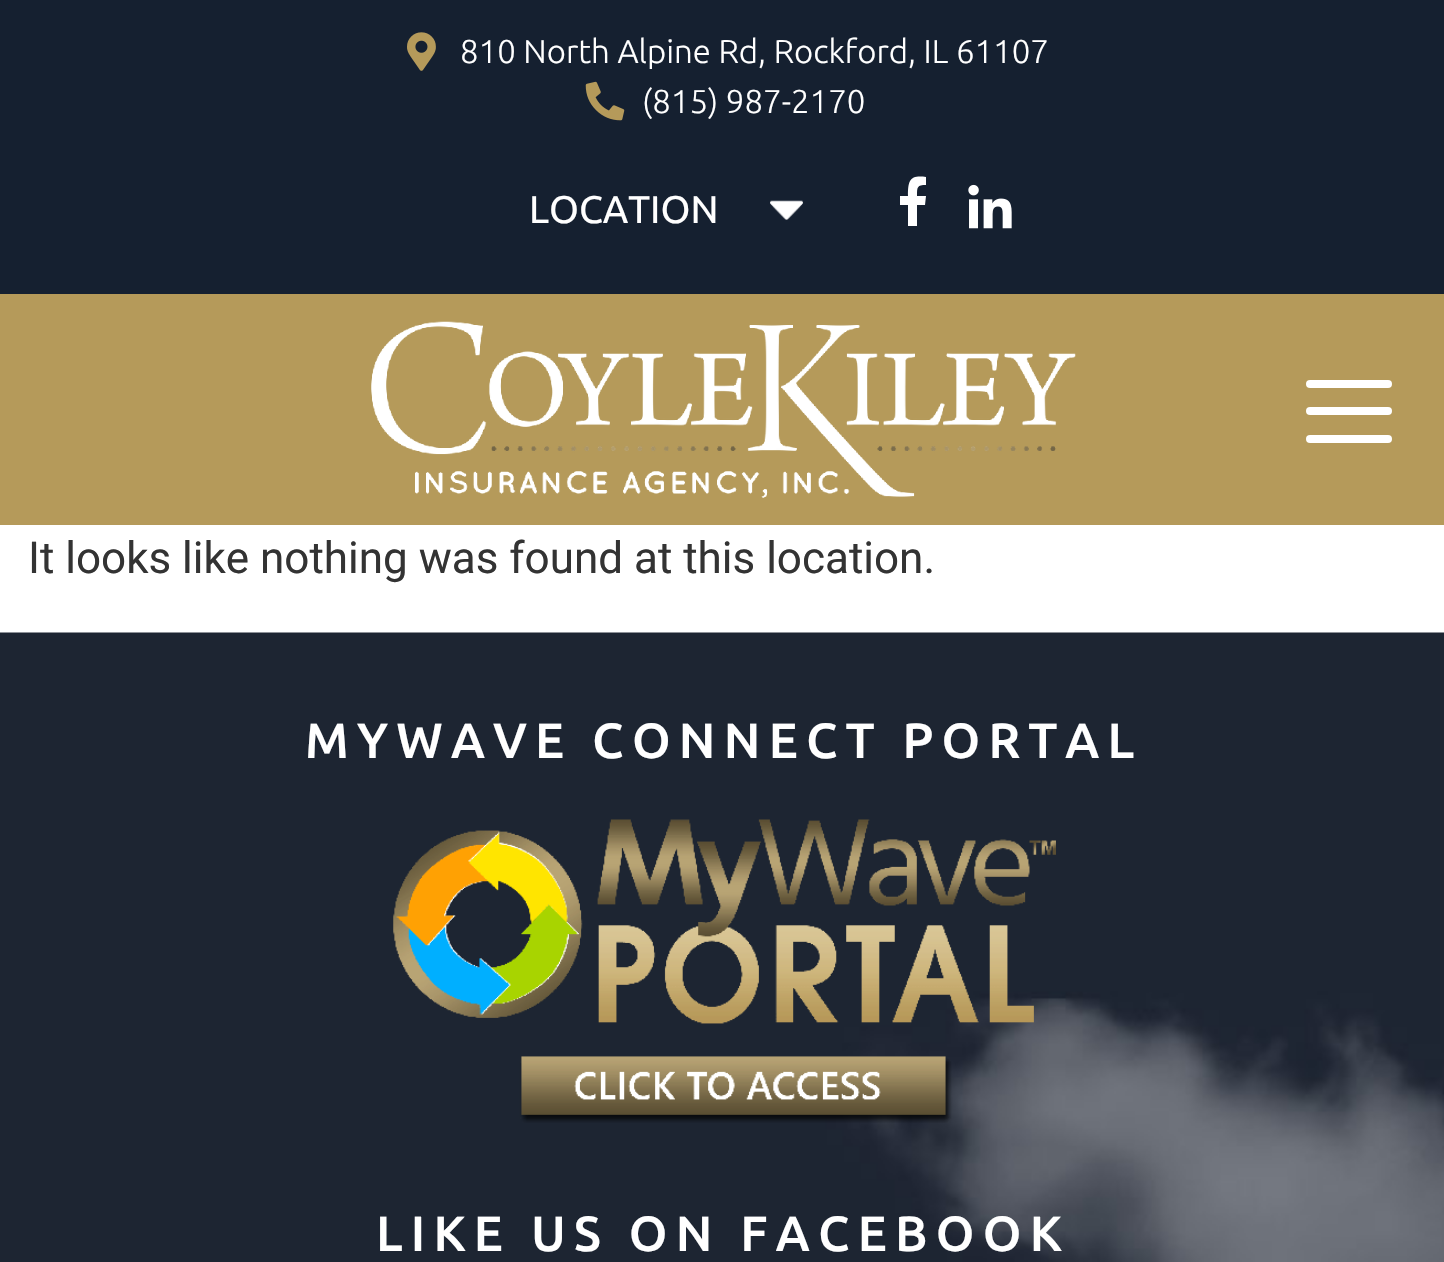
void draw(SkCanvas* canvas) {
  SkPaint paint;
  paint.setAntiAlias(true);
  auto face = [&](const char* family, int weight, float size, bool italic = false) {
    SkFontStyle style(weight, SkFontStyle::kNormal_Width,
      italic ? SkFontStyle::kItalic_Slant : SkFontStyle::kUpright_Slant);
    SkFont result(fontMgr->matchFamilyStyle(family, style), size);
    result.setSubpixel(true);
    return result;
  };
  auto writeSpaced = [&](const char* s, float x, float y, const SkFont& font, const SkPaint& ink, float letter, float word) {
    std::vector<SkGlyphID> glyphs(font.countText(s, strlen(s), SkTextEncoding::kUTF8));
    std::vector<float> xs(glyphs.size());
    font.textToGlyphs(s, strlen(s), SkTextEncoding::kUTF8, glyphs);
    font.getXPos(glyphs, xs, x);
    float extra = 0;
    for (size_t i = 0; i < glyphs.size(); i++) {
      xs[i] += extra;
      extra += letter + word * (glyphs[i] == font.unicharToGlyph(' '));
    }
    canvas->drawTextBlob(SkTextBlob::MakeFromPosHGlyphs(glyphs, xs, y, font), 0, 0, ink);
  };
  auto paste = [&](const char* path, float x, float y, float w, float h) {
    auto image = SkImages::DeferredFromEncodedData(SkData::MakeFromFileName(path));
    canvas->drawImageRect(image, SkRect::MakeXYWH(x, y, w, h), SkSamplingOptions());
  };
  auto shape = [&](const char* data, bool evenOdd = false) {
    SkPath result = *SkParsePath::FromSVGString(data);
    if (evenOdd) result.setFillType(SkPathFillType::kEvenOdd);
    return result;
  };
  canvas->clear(0xffffffff);
  paint.setColor(0xffb59a5a);
  canvas->drawRect(SkRect::MakeXYWH(0, 294, 1444, 231), paint);
  paint.setColor(0xff152030);
  canvas->drawRect(SkRect::MakeXYWH(0, 0, 1444, 294), paint);
  paste("img/1.png", 407, 32, 29, 39);
  paste("img/2.png", 585, 81, 40, 40);
  paste("img/3.png", 770, 200, 33, 20);
  paint.setColor(0xffffffff);
  canvas->drawPath(shape("M925 205H917V226H908V205H900V196H908C908 180 910 175 926 177V185C917 185 917 187 917 196H926Z"), paint);
  paste("img/4.png", 968, 184, 44, 45);
  paste("img/5.png", 371, 321, 705, 177);
  paste("img/6.png", 0, 632, 1444, 630);
  paste("img/7.png", 393, 819, 663, 304);
  canvas->drawRoundRect(SkRect::MakeXYWH(1306, 407, 86, 8), 4, 4, paint);
  canvas->drawRoundRect(SkRect::MakeXYWH(1306, 380, 86, 8), 4, 4, paint);
  canvas->drawRoundRect(SkRect::MakeXYWH(1306, 435, 86, 8), 4, 4, paint);
  auto f0 = face("Ubuntu", 300, 33);
  canvas->drawString("810 North Alpine Rd, Rockford, IL 61107", 460, 63, f0, paint);
  canvas->drawString("(815) 987-2170", 642, 113, f0, paint);
  auto f1 = face("Ubuntu", 400, 38.5f);
  canvas->drawString("LOCATION", 529, 223, f1, paint);
  auto f2 = face("Roboto", 400, 44);
  paint.setColor(0xff333333);
  canvas->drawString("It looks like nothing was found at this location.", 28, 573, f2, paint);
  auto f3 = face("Ubuntu", 500, 49.5f);
  paint.setColor(0xffffffff);
  writeSpaced("MYWAVE CONNECT PORTAL", 305, 758, f3, paint, 8.25f, 0);
  writeSpaced("LIKE US ON FACEBOOK", 376, 1251, f3, paint, 8.25f, 0);
}
